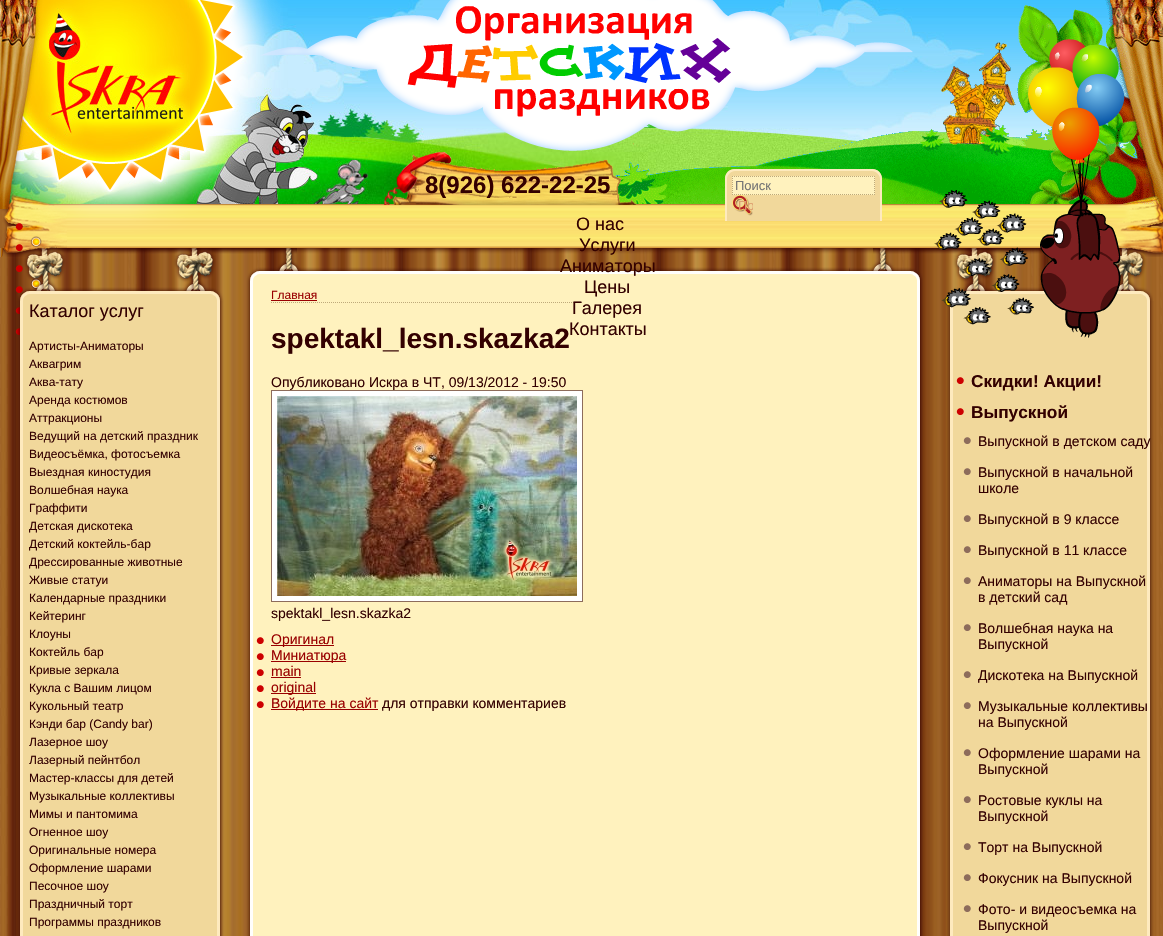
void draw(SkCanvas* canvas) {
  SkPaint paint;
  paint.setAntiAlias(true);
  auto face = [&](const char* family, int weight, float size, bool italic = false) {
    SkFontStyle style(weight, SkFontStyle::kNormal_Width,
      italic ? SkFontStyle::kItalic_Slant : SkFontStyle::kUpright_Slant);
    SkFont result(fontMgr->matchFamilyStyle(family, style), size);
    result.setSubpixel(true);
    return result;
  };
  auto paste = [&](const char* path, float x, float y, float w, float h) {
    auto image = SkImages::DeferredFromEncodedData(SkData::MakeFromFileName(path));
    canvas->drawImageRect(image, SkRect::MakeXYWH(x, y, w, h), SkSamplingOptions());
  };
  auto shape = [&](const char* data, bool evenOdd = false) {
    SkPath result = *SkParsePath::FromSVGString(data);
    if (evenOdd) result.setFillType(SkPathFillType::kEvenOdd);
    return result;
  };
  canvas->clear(0xffffffff);
  paste("img/1.png", 8, 0, 1128, 204);
  paste("img/2.png", 616, 0, 547, 204);
  paste("img/5.png", 260, 0, 653, 151);
  paste("img/3.png", 0, 0, 283, 204);
  paste("img/4.png", 0, 0, 190, 160);
  paste("img/6.png", 407, 6, 324, 111);
  paste("img/10.png", 0, 248, 1163, 688);
  paste("img/11.png", 2, 204, 1161, 50);
  paste("img/7.png", 383, 143, 255, 62);
  paste("img/13.png", 873, 204, 290, 53);
  paint.setColor(0xfff1d89b);
  canvas->drawPath(shape("M735 169H872C877.5 169 882 173.5 882 179V221H725V179C725 173.5 729.5 169 735 169Z"), paint);
  paint.setColor(0xfffeeabe);
  canvas->drawPath(shape("M735 169H872C878 169 882 173 882 179V221H725V179C725 173 729 169 735 169ZM735 171H872C876 171 880 175 880 179V221H727V179C727 175 731 171 735 171Z", true), paint);
  paint.setColor(0xfffff2be);
  canvas->drawRect(SkRect::MakeXYWH(732, 176, 143, 19), paint);
  paint.setStroke(true);
  paint.setStrokeWidth(1);
  paint.setColor(0xffbeaa7b);
  paint.setPathEffect(SkDashPathEffect::Make({{1, 1}}, 0));
  canvas->drawPath(shape("M732 176.5H875"), paint);
  paint.setPathEffect(nullptr);
  paint.setPathEffect(SkDashPathEffect::Make({{1, 1}}, 0));
  canvas->drawPath(shape("M874.5 176V195"), paint);
  paint.setPathEffect(nullptr);
  paint.setPathEffect(SkDashPathEffect::Make({{1, 1}}, 0));
  canvas->drawPath(shape("M732 194.5H875"), paint);
  paint.setPathEffect(nullptr);
  paint.setPathEffect(SkDashPathEffect::Make({{1, 1}}, 0));
  canvas->drawPath(shape("M732.5 176V195"), paint);
  paint.setPathEffect(nullptr);
  paste("img/8.png", 732, 195, 21, 21);
  paste("img/30.png", 948, 257, 205, 44);
  paste("img/31.png", 947, 301, 207, 635);
  paste("img/9.png", 934, 39, 191, 299);
  paste("img/12.png", 0, 204, 297, 53);
  paste("img/14.png", 15, 223, 8, 7);
  paste("img/15.png", 30, 236, 12, 11);
  paste("img/16.png", 15, 244, 8, 7);
  paste("img/17.png", 32, 257, 8, 11);
  paste("img/18.png", 15, 265, 8, 7);
  paste("img/19.png", 30, 278, 12, 11);
  paste("img/18.png", 15, 286, 8, 7);
  paste("img/20.png", 15, 307, 5, 7);
  paste("img/20.png", 15, 328, 5, 7);
  paste("img/21.png", 17, 257, 207, 44);
  paste("img/22.png", 16, 301, 208, 635);
  paste("img/23.png", 246, 257, 74, 31);
  paste("img/24.png", 849, 257, 74, 31);
  paste("img/25.png", 320, 267, 530, 21);
  paste("img/26.png", 910, 288, 13, 648);
  paste("img/27.png", 246, 288, 14, 648);
  paint.setStroke(false);
  paint.setColor(0xfffff2be);
  canvas->drawRect(SkRect::MakeXYWH(260, 288, 650, 648), paint);
  paint.setStroke(true);
  paint.setColor(0xffbeaa7b);
  paint.setPathEffect(SkDashPathEffect::Make({{1, 1}}, 0));
  canvas->drawPath(shape("M271 302.5H583"), paint);
  paint.setPathEffect(nullptr);
  paint.setStroke(false);
  paint.setColor(0xff990000);
  canvas->drawRect(SkRect::MakeXYWH(271, 300, 46, 1), paint);
  paint.setColor(0xffffffff);
  canvas->drawRect(SkRect::MakeXYWH(271.5f, 390.5f, 311, 211), paint);
  paint.setStroke(true);
  paint.setColor(0xff8d6c5b);
  canvas->drawRect(SkRect::MakeXYWH(271.5f, 390.5f, 311, 211), paint);
  paste("img/28.png", 277, 396, 300, 200);
  paste("img/29.png", 256, 637, 8, 7);
  paint.setStroke(false);
  paint.setColor(0xff990000);
  canvas->drawRect(SkRect::MakeXYWH(271, 645, 63, 1), paint);
  paste("img/29.png", 256, 653, 8, 7);
  canvas->drawRect(SkRect::MakeXYWH(271, 661, 75, 1), paint);
  paste("img/29.png", 256, 669, 8, 7);
  canvas->drawRect(SkRect::MakeXYWH(271, 677, 30, 1), paint);
  paste("img/29.png", 256, 685, 8, 7);
  canvas->drawRect(SkRect::MakeXYWH(271, 693, 45, 1), paint);
  paste("img/29.png", 256, 701, 8, 7);
  canvas->drawRect(SkRect::MakeXYWH(271, 709, 107, 1), paint);
  paste("img/32.png", 956, 377, 8, 7);
  paste("img/32.png", 956, 408, 8, 7);
  paste("img/33.png", 963, 437, 8, 7);
  paste("img/33.png", 963, 468, 8, 7);
  paste("img/33.png", 963, 515, 8, 7);
  paste("img/33.png", 963, 546, 8, 7);
  paste("img/33.png", 963, 577, 8, 7);
  paste("img/33.png", 963, 624, 8, 7);
  paste("img/33.png", 963, 671, 8, 7);
  paste("img/33.png", 963, 702, 8, 7);
  paste("img/33.png", 963, 749, 8, 7);
  paste("img/33.png", 963, 796, 8, 7);
  paste("img/33.png", 963, 843, 8, 7);
  paste("img/33.png", 963, 874, 8, 7);
  paste("img/33.png", 963, 905, 8, 7);
  auto f0 = face("Liberation Sans", 700, 24);
  paint.setColor(0xff330000);
  canvas->drawString("8(926) 622-22-25", 425, 193, f0, paint);
  auto f1 = face("Liberation Sans", 400, 13);
  paint.setColor(0xff757575);
  canvas->drawString("Поиск", 735, 190, f1, paint);
  canvas->save();
  canvas->clipRect(SkRect::MakeXYWH(732, 195, 21, 21));
  paint.setColor(0xffdd9e6e);
  canvas->drawString("По", 738, 210, f1, paint);
  canvas->restore();
  auto f2 = face("Liberation Sans", 400, 18);
  paint.setColor(0xff330000);
  {
    const struct { const char* s; float x, y; } items[] = {
      {"О нас", 576, 230},
      {"Услуги", 579, 251},
      {"Аниматоры", 560, 272},
      {"Цены", 584, 293},
      {"Галерея", 572, 314},
      {"Контакты", 569, 335},
      {"Каталог услуг", 29, 317},
    };
    for (auto [s, x, y] : items) {
      canvas->drawString(s, x, y, f2, paint);
    }
  }
  auto f3 = face("Liberation Sans", 400, 12);
  {
    const struct { const char* s; float x, y; } items[] = {
      {"Артисты-Аниматоры", 29, 350},
      {"Аквагрим", 29, 368},
      {"Аква-тату", 29, 386},
      {"Аренда костюмов", 29, 404},
      {"Аттракционы", 29, 422},
      {"Ведущий на детский праздник", 29, 440},
      {"Видеосъёмка, фотосъемка", 29, 458},
      {"Выездная киностудия", 29, 476},
      {"Волшебная наука", 29, 494},
      {"Граффити", 29, 512},
      {"Детская дискотека", 29, 530},
      {"Детский коктейль-бар", 29, 548},
      {"Дрессированные животные", 29, 566},
      {"Живые статуи", 29, 584},
      {"Календарные праздники", 29, 602},
      {"Кейтеринг", 29, 620},
      {"Клоуны", 29, 638},
      {"Коктейль бар", 29, 656},
      {"Кривые зеркала", 29, 674},
      {"Кукла с Вашим лицом", 29, 692},
      {"Кукольный театр", 29, 710},
      {"Кэнди бар (Candy bar)", 29, 728},
      {"Лазерное шоу", 29, 746},
      {"Лазерный пейнтбол", 29, 764},
      {"Мастер-классы для детей", 29, 782},
      {"Музыкальные коллективы", 29, 800},
      {"Мимы и пантомима", 29, 818},
      {"Огненное шоу", 29, 836},
      {"Оригинальные номера", 29, 854},
      {"Оформление шарами", 29, 872},
      {"Песочное шоу", 29, 890},
      {"Праздничный торт", 29, 908},
      {"Программы праздников", 29, 926},
    };
    for (auto [s, x, y] : items) {
      canvas->drawString(s, x, y, f3, paint);
    }
  }
  paint.setColor(0xff990000);
  canvas->drawString("Главная", 271, 299, f3, paint);
  auto f4 = face("Liberation Sans", 700, 28);
  paint.setColor(0xff330000);
  canvas->drawString("spektakl_lesn.skazka2", 271, 348, f4, paint);
  auto f5 = face("Liberation Sans", 400, 14);
  canvas->drawString("Опубликовано Искра в ЧТ, 09/13/2012 - 19:50", 271, 387, f5, paint);
  canvas->drawString("spektakl_lesn.skazka2", 271, 618, f5, paint);
  paint.setColor(0xff990000);
  {
    const struct { const char* s; float x, y; } items[] = {
      {"Оригинал", 271, 644},
      {"Миниатюра", 271, 660},
      {"main", 271, 676},
      {"original", 271, 692},
      {"Войдите на сайт", 271, 708},
    };
    for (auto [s, x, y] : items) {
      canvas->drawString(s, x, y, f5, paint);
    }
  }
  paint.setColor(0xff330000);
  canvas->drawString("для отправки комментариев", 382, 708, f5, paint);
  auto f6 = face("Liberation Sans", 700, 17.25f);
  canvas->drawString("Скидки! Акции!", 971, 387, f6, paint);
  canvas->drawString("Выпускной", 971, 418, f6, paint);
  {
    const struct { const char* s; float x, y; } items[] = {
      {"Выпускной в детском саду", 978, 446},
      {"Выпускной в начальной", 978, 477},
      {"школе", 978, 493},
      {"Выпускной в 9 классе", 978, 524},
      {"Выпускной в 11 классе", 978, 555},
      {"Аниматоры на Выпускной", 978, 586},
      {"в детский сад", 978, 602},
      {"Волшебная наука на", 978, 633},
      {"Выпускной", 978, 649},
      {"Дискотека на Выпускной", 978, 680},
      {"Музыкальные коллективы", 978, 711},
      {"на Выпускной", 978, 727},
      {"Оформление шарами на", 978, 758},
      {"Выпускной", 978, 774},
      {"Ростовые куклы на", 978, 805},
      {"Выпускной", 978, 821},
      {"Торт на Выпускной", 978, 852},
      {"Фокусник на Выпускной", 978, 883},
      {"Фото- и видеосъемка на", 978, 914},
      {"Выпускной", 978, 930},
    };
    for (auto [s, x, y] : items) {
      canvas->drawString(s, x, y, f5, paint);
    }
  }
}
